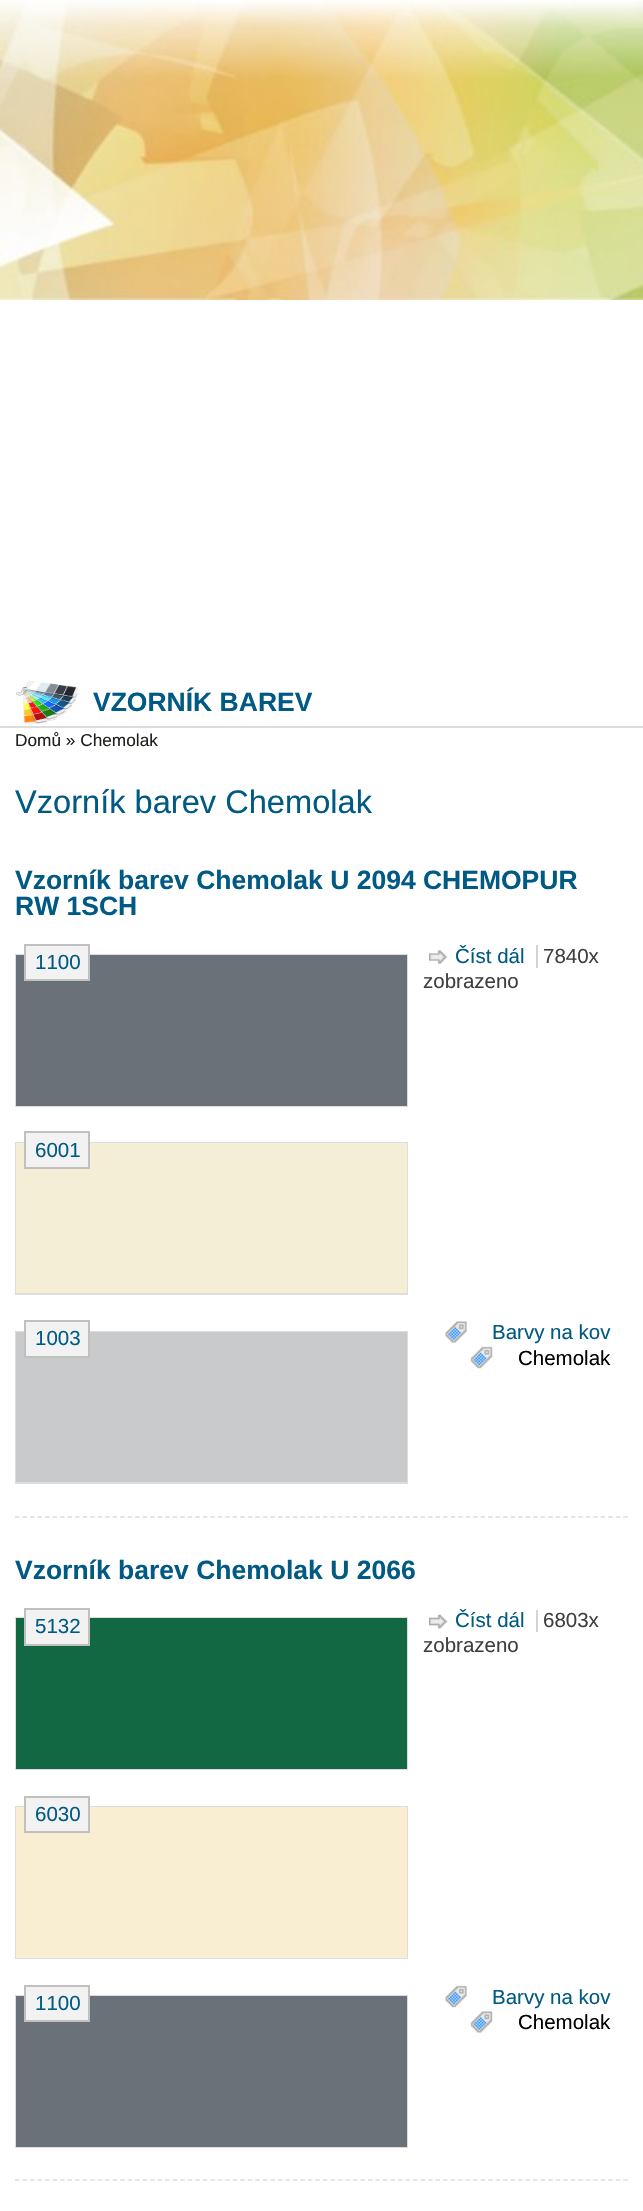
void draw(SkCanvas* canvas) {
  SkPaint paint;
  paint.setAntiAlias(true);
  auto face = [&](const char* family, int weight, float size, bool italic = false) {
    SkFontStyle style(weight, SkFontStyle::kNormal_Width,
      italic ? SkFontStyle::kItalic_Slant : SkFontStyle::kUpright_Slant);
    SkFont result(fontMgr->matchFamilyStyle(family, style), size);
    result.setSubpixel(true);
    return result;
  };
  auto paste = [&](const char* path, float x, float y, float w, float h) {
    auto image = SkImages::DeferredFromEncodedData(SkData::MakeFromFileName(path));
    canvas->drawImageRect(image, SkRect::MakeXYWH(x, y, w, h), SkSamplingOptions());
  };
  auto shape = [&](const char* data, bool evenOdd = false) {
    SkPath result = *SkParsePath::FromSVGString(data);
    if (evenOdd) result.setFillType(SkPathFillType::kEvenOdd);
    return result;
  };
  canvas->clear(0xffffffff);
  paste("img/1.png", 0, 0, 643, 300);
  paint.setColor(0xffdddddd);
  canvas->drawRect(SkRect::MakeXYWH(0, 726, 643, 2), paint);
  paste("img/2.png", 15, 680, 64, 45);
  paint.setStroke(true);
  paint.setStrokeWidth(1.5f);
  paint.setPathEffect(SkDashPathEffect::Make({{4.5f, 3.01f}}, 0));
  canvas->drawPath(shape("M15 1517H628.5"), paint);
  paint.setPathEffect(nullptr);
  paste("img/3.png", 429, 950, 19, 14);
  paint.setStroke(false);
  paint.setColor(0xffd3d3d3);
  canvas->drawRect(SkRect::MakeXYWH(536, 945, 2, 23), paint);
  paint.setStroke(true);
  paint.setStrokeWidth(2);
  paint.setColor(0xffdddddd);
  canvas->drawRect(SkRect::MakeXYWH(16, 955, 391, 151), paint);
  paint.setStroke(false);
  paint.setColor(0xff6a7179);
  canvas->drawRect(SkRect::MakeXYWH(16, 955, 391, 151), paint);
  paint.setColor(0xfff2f2f2);
  canvas->drawRect(SkRect::MakeXYWH(25, 945, 64, 35), paint);
  paint.setStroke(true);
  paint.setColor(0xffc0c0c0);
  canvas->drawRect(SkRect::MakeXYWH(25, 945, 64, 35), paint);
  paint.setColor(0xffdddddd);
  canvas->drawRect(SkRect::MakeXYWH(16, 1143, 391, 151), paint);
  paint.setStroke(false);
  paint.setColor(0xfff4eed6);
  canvas->drawRect(SkRect::MakeXYWH(16, 1143, 391, 150), paint);
  paint.setColor(0xfff2f2f2);
  canvas->drawRect(SkRect::MakeXYWH(25, 1132, 64, 36), paint);
  paint.setStroke(true);
  paint.setColor(0xffc0c0c0);
  canvas->drawRect(SkRect::MakeXYWH(25, 1132, 64, 36), paint);
  paint.setColor(0xffdddddd);
  canvas->drawRect(SkRect::MakeXYWH(16, 1332, 391, 151), paint);
  paint.setStroke(false);
  paint.setColor(0xffc9cacc);
  canvas->drawRect(SkRect::MakeXYWH(16, 1332, 391, 150), paint);
  paint.setColor(0xfff2f2f2);
  canvas->drawRect(SkRect::MakeXYWH(25, 1321, 64, 36), paint);
  paint.setStroke(true);
  paint.setColor(0xffc0c0c0);
  canvas->drawRect(SkRect::MakeXYWH(25, 1321, 64, 36), paint);
  paste("img/4.png", 445, 1321, 22, 22);
  paste("img/5.png", 470, 1346, 23, 23);
  paint.setStrokeWidth(1.5f);
  paint.setColor(0xffdddddd);
  paint.setPathEffect(SkDashPathEffect::Make({{4.5f, 3.01f}}, 0));
  canvas->drawPath(shape("M15 2180H628.5"), paint);
  paint.setPathEffect(nullptr);
  paste("img/6.png", 429, 1614, 19, 15);
  paint.setStroke(false);
  paint.setColor(0xffd3d3d3);
  canvas->drawRect(SkRect::MakeXYWH(536, 1610, 2, 22), paint);
  paint.setStroke(true);
  paint.setStrokeWidth(2);
  paint.setColor(0xffdddddd);
  canvas->drawRect(SkRect::MakeXYWH(16, 1618, 391, 151), paint);
  paint.setStroke(false);
  paint.setColor(0xff126843);
  canvas->drawRect(SkRect::MakeXYWH(16, 1618, 391, 151), paint);
  paint.setColor(0xfff2f2f2);
  canvas->drawRect(SkRect::MakeXYWH(25, 1609, 64, 36), paint);
  paint.setStroke(true);
  paint.setColor(0xffc0c0c0);
  canvas->drawRect(SkRect::MakeXYWH(25, 1609, 64, 36), paint);
  paint.setColor(0xffdddddd);
  canvas->drawRect(SkRect::MakeXYWH(16, 1807, 391, 151), paint);
  paint.setStroke(false);
  paint.setColor(0xfff9eed2);
  canvas->drawRect(SkRect::MakeXYWH(16, 1807, 391, 151), paint);
  paint.setColor(0xfff2f2f2);
  canvas->drawRect(SkRect::MakeXYWH(25, 1797, 64, 35), paint);
  paint.setStroke(true);
  paint.setColor(0xffc0c0c0);
  canvas->drawRect(SkRect::MakeXYWH(25, 1797, 64, 35), paint);
  paint.setColor(0xffdddddd);
  canvas->drawRect(SkRect::MakeXYWH(16, 1996, 391, 151), paint);
  paint.setStroke(false);
  paint.setColor(0xff6a7179);
  canvas->drawRect(SkRect::MakeXYWH(16, 1996, 391, 151), paint);
  paint.setColor(0xfff2f2f2);
  canvas->drawRect(SkRect::MakeXYWH(25, 1986, 64, 35), paint);
  paint.setStroke(true);
  paint.setColor(0xffc0c0c0);
  canvas->drawRect(SkRect::MakeXYWH(25, 1986, 64, 35), paint);
  paste("img/7.png", 445, 1985, 22, 23);
  paste("img/8.png", 470, 2011, 23, 22);
  auto f0 = face("Liberation Sans", 700, 26.5f);
  paint.setStroke(false);
  paint.setColor(0xff005a84);
  canvas->drawString("VZORNÍK BAREV", 93, 711, f0, paint);
  auto f1 = face("Liberation Sans", 400, 17.25f);
  paint.setColor(0xff1e201b);
  canvas->drawString("Domů » Chemolak", 15, 746, f1, paint);
  auto f2 = face("Liberation Sans", 400, 32.6f);
  paint.setColor(0xff005a84);
  canvas->drawString("Vzorník barev Chemolak", 15, 813, f2, paint);
  canvas->drawString("Vzorník barev Chemolak U 2094 CHEMOPUR", 15, 889, f0, paint);
  canvas->drawString("RW 1SCH", 15, 915, f0, paint);
  auto f3 = face("Liberation Sans", 400, 20.5f);
  canvas->drawString("Číst dál", 455, 963, f3, paint);
  paint.setColor(0xff3f3f3f);
  canvas->drawString("7840x", 543, 963, f3, paint);
  paint.setColor(0xff005a84);
  {
    const struct { const char* s; float x, y; } items[] = {
      {"1100", 35, 969},
      {"6001", 35, 1157},
      {"1003", 35, 1345},
      {"Barvy na kov", 492, 1339},
    };
    for (auto [s, x, y] : items) {
      canvas->drawString(s, x, y, f3, paint);
    }
  }
  paint.setColor(0xff000000);
  canvas->drawString("Chemolak", 518, 1365, f3, paint);
  paint.setColor(0xff3f3f3f);
  canvas->drawString("zobrazeno", 423, 988, f3, paint);
  paint.setColor(0xff005a84);
  canvas->drawString("Vzorník barev Chemolak U 2066", 15, 1579, f0, paint);
  canvas->drawString("Číst dál", 455, 1627, f3, paint);
  paint.setColor(0xff3f3f3f);
  canvas->drawString("6803x", 543, 1627, f3, paint);
  paint.setColor(0xff005a84);
  {
    const struct { const char* s; float x, y; } items[] = {
      {"5132", 35, 1633},
      {"6030", 35, 1821},
      {"1100", 35, 2010},
      {"Barvy na kov", 492, 2004},
    };
    for (auto [s, x, y] : items) {
      canvas->drawString(s, x, y, f3, paint);
    }
  }
  paint.setColor(0xff000000);
  canvas->drawString("Chemolak", 518, 2029, f3, paint);
  paint.setColor(0xff3f3f3f);
  canvas->drawString("zobrazeno", 423, 1652, f3, paint);
}
